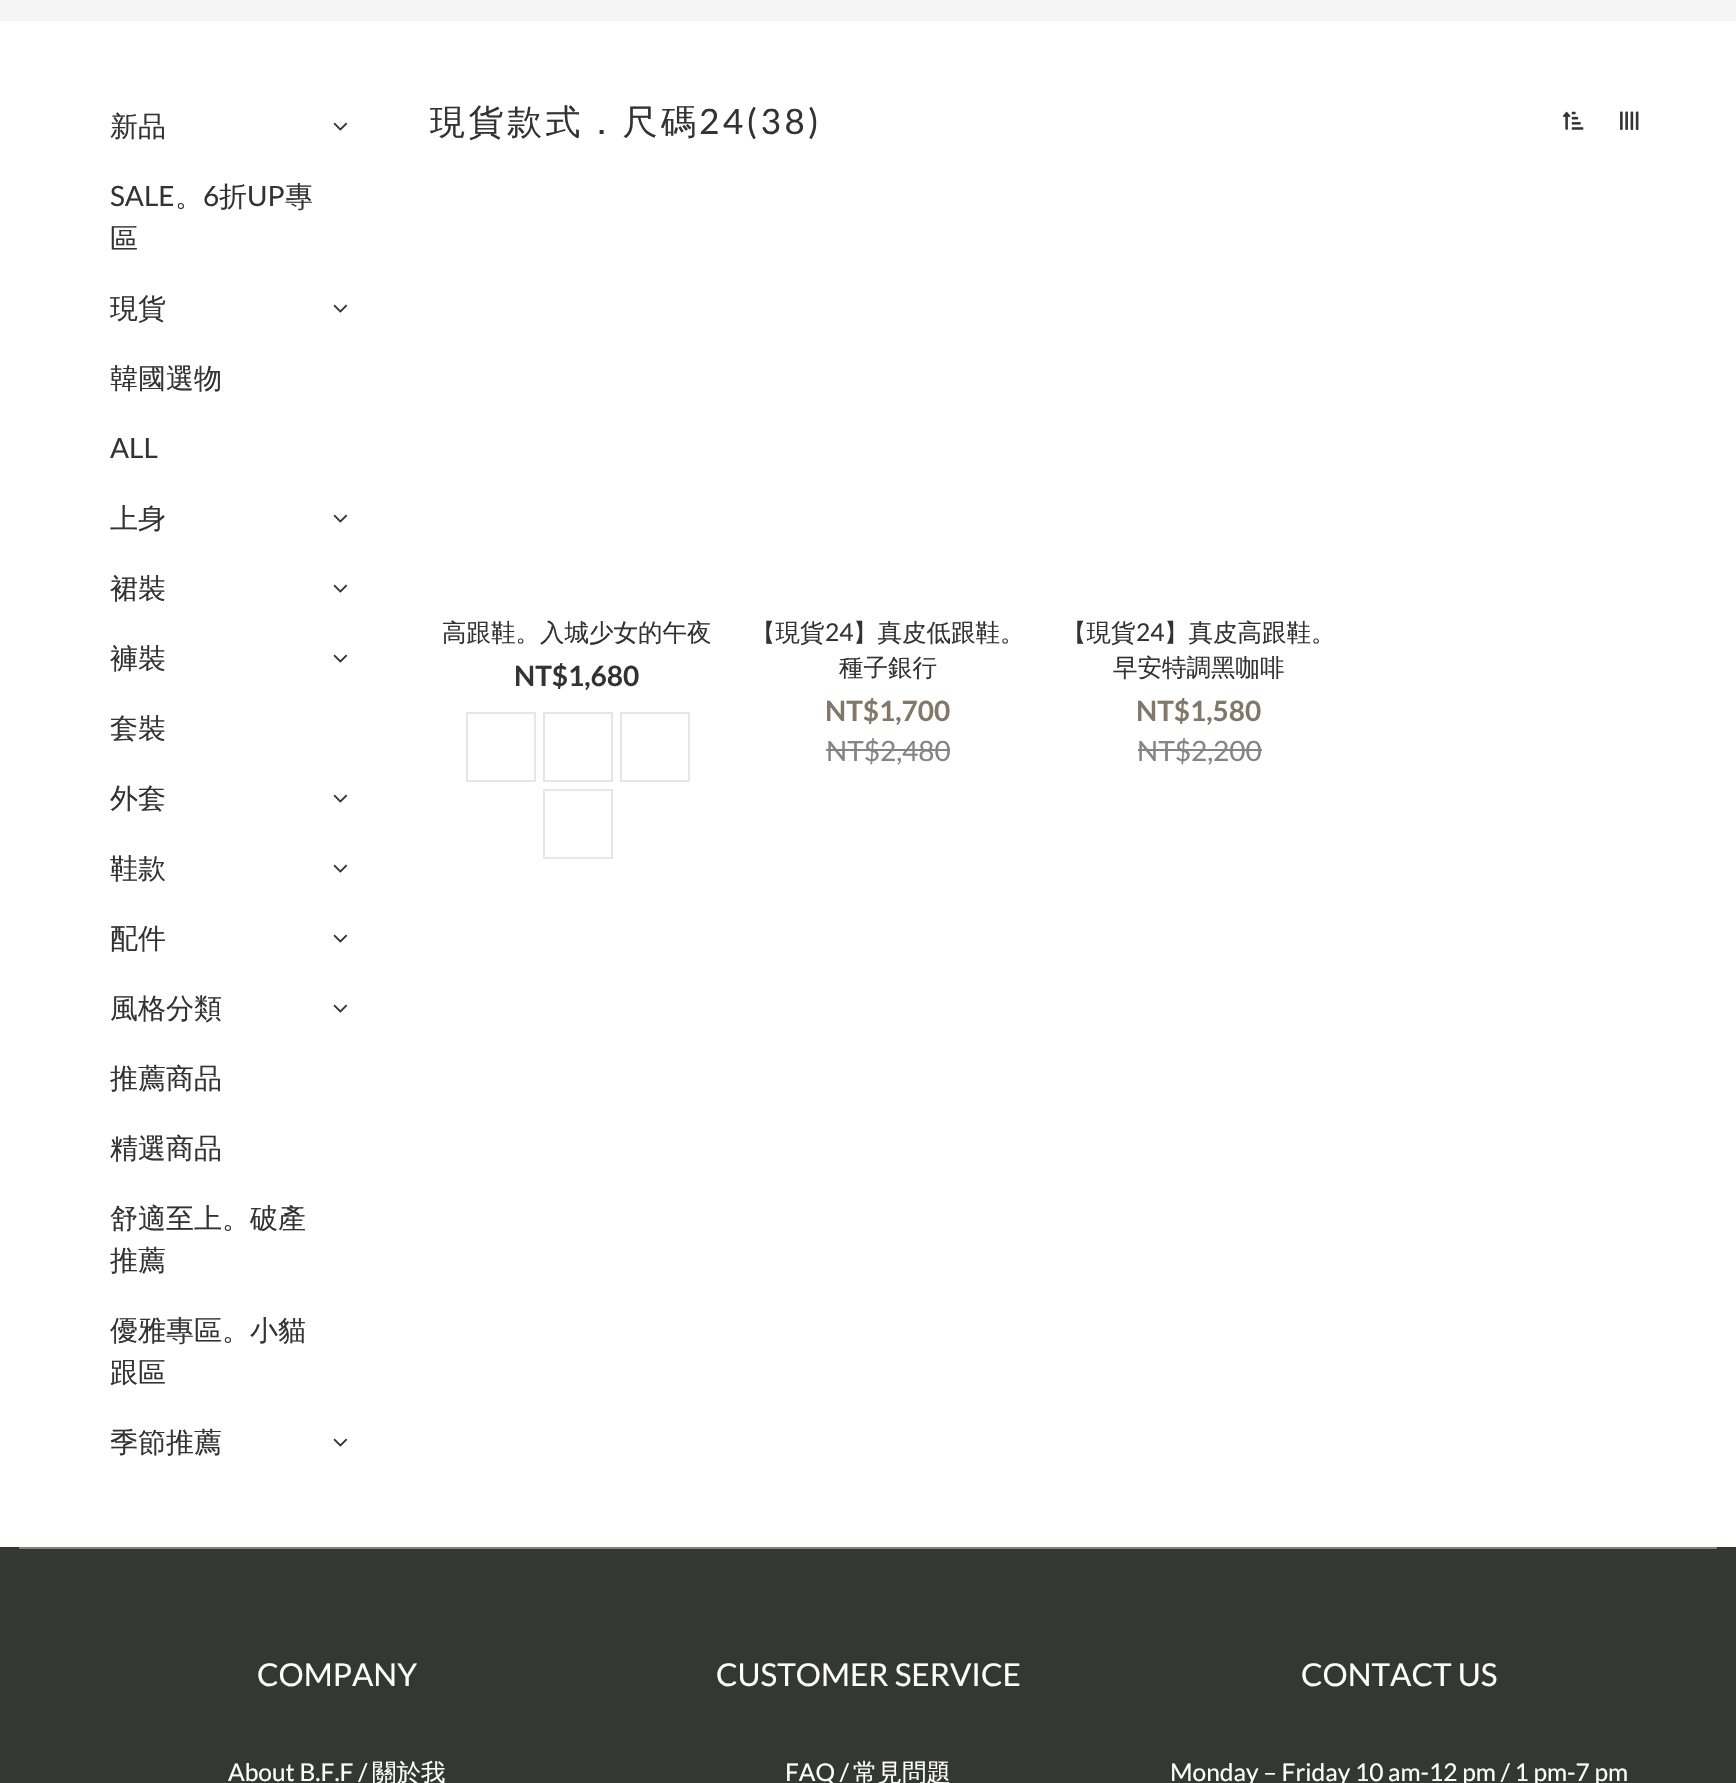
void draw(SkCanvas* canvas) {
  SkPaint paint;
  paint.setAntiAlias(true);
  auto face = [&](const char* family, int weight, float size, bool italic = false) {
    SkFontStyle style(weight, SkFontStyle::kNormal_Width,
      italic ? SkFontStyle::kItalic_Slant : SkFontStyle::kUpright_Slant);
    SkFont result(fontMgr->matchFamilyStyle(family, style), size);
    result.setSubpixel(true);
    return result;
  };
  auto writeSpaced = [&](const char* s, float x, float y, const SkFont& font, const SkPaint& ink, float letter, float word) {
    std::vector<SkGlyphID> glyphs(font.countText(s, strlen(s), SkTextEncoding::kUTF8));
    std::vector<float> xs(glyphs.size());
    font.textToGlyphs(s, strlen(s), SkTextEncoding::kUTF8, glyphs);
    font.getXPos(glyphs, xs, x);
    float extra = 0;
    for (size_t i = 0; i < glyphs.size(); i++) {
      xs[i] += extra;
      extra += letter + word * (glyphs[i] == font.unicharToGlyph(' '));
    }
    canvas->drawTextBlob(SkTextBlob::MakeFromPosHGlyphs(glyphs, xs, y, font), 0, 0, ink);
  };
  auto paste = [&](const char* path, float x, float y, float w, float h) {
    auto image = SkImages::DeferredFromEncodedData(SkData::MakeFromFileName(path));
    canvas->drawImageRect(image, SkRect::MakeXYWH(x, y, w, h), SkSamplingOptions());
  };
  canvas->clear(0xffffffff);
  paint.setColor(0xfff5f5f5);
  canvas->drawRect(SkRect::MakeXYWH(0, 0, 1736, 21), paint);
  paste("img/1.png", 333, 122, 15, 9);
  paste("img/1.png", 333, 304, 15, 9);
  paste("img/1.png", 333, 514, 15, 9);
  paste("img/1.png", 333, 584, 15, 9);
  paste("img/1.png", 333, 654, 15, 9);
  paste("img/1.png", 333, 794, 15, 9);
  paste("img/1.png", 333, 864, 15, 9);
  paste("img/1.png", 333, 934, 15, 9);
  paste("img/1.png", 333, 1004, 15, 9);
  paste("img/1.png", 333, 1438, 15, 9);
  paste("img/2.png", 1563, 111, 21, 19);
  paste("img/3.png", 1620, 111, 19, 19);
  paint.setStroke(true);
  paint.setStrokeWidth(2);
  paint.setColor(0xffe6e6e6);
  canvas->drawRect(SkRect::MakeXYWH(467, 713, 68, 68), paint);
  canvas->drawRect(SkRect::MakeXYWH(544, 713, 68, 68), paint);
  canvas->drawRect(SkRect::MakeXYWH(621, 713, 68, 68), paint);
  canvas->drawRect(SkRect::MakeXYWH(544, 790, 68, 68), paint);
  paint.setStroke(false);
  {
    const struct { float x, y, w, h; SkColor color; } items[] = {
      {826, 749, 124, 2, 0xff858585},
      {1138, 749, 124, 2, 0xff858585},
      {0, 1547, 1736, 236, 0xff353732},
      {19, 1547, 1698, 2, 0xff81837e},
    };
    for (auto [x, y, w, h, color] : items) {
      paint.setColor(color);
      canvas->drawRect(SkRect::MakeXYWH(x, y, w, h), paint);
    }
  }
  auto f0 = face("WenQuanYi Zen Hei", 500, 28);
  paint.setColor(0xff333333);
  canvas->drawString("新品", 110, 136, f0, paint);
  auto f1 = face("Lato", 400, 28);
  canvas->drawString("SALE", 110, 206, f1, paint);
  canvas->drawString("。", 175, 206, f0, paint);
  canvas->drawString("6", 203, 206, f1, paint);
  canvas->drawString("折", 219, 206, f0, paint);
  canvas->drawString("UP", 247, 206, f1, paint);
  {
    const struct { const char* s; float x, y; } items[] = {
      {"專", 285, 206},
      {"區", 110, 248},
      {"現貨", 110, 318},
      {"韓國選物", 110, 388},
    };
    for (auto [s, x, y] : items) {
      canvas->drawString(s, x, y, f0, paint);
    }
  }
  canvas->drawString("ALL", 110, 458, f1, paint);
  {
    const struct { const char* s; float x, y; } items[] = {
      {"上身", 110, 528},
      {"裙裝", 110, 598},
      {"褲裝", 110, 668},
      {"套裝", 110, 738},
      {"外套", 110, 808},
      {"鞋款", 110, 878},
      {"配件", 110, 948},
      {"風格分類", 110, 1018},
      {"推薦商品", 110, 1088},
      {"精選商品", 110, 1158},
      {"舒適至上。破產", 110, 1228},
      {"推薦", 110, 1270},
      {"優雅專區。小貓", 110, 1340},
      {"跟區", 110, 1382},
      {"季節推薦", 110, 1452},
    };
    for (auto [s, x, y] : items) {
      canvas->drawString(s, x, y, f0, paint);
    }
  }
  auto f2 = face("WenQuanYi Zen Hei", 500, 35);
  writeSpaced("現貨款式．尺碼", 430, 134, f2, paint, 3.5f, 0);
  auto f3 = face("Lato", 400, 35);
  writeSpaced("24(38)", 699, 134, f3, paint, 3.5f, 0);
  auto f4 = face("WenQuanYi Zen Hei", 500, 24.5f);
  canvas->drawString("高跟鞋。入城少女的午夜", 442, 641, f4, paint);
  auto f5 = face("Lato", 700, 28);
  canvas->drawString("NT$1,680", 514, 686, f5, paint);
  canvas->drawString("【現貨", 751, 641, f4, paint);
  auto f6 = face("Lato", 400, 24.5f);
  canvas->drawString("24", 825, 641, f6, paint);
  canvas->drawString("】真皮低跟鞋。", 853, 641, f4, paint);
  canvas->drawString("種子銀行", 839, 676, f4, paint);
  paint.setColor(0xff82786a);
  canvas->drawString("NT$1,700", 825, 721, f5, paint);
  paint.setColor(0xff858585);
  canvas->drawString("NT$2,480", 826, 761, f1, paint);
  paint.setColor(0xff333333);
  canvas->drawString("【現貨", 1062, 641, f4, paint);
  canvas->drawString("24", 1136, 641, f6, paint);
  canvas->drawString("】真皮高跟鞋。", 1164, 641, f4, paint);
  canvas->drawString("早安特調黑咖啡", 1113, 676, f4, paint);
  paint.setColor(0xff82786a);
  canvas->drawString("NT$1,580", 1136, 721, f5, paint);
  paint.setColor(0xff858585);
  canvas->drawString("NT$2,200", 1137, 761, f1, paint);
  auto f7 = face("Lato", 400, 31.5f);
  paint.setColor(0xffffffff);
  canvas->drawString("COMPANY", 257, 1686, f7, paint);
  canvas->drawString("About B.F.F /", 228, 1781, f6, paint);
  canvas->drawString("關於我", 372, 1781, f4, paint);
  canvas->drawString("CUSTOMER SERVICE", 716, 1686, f7, paint);
  canvas->drawString("FAQ /", 785, 1781, f6, paint);
  canvas->drawString("常見問題", 853, 1781, f4, paint);
  canvas->drawString("CONTACT US", 1301, 1686, f7, paint);
  canvas->drawString("Monday – Friday 10 am-12 pm / 1 pm-7 pm", 1170, 1781, f6, paint);
}
